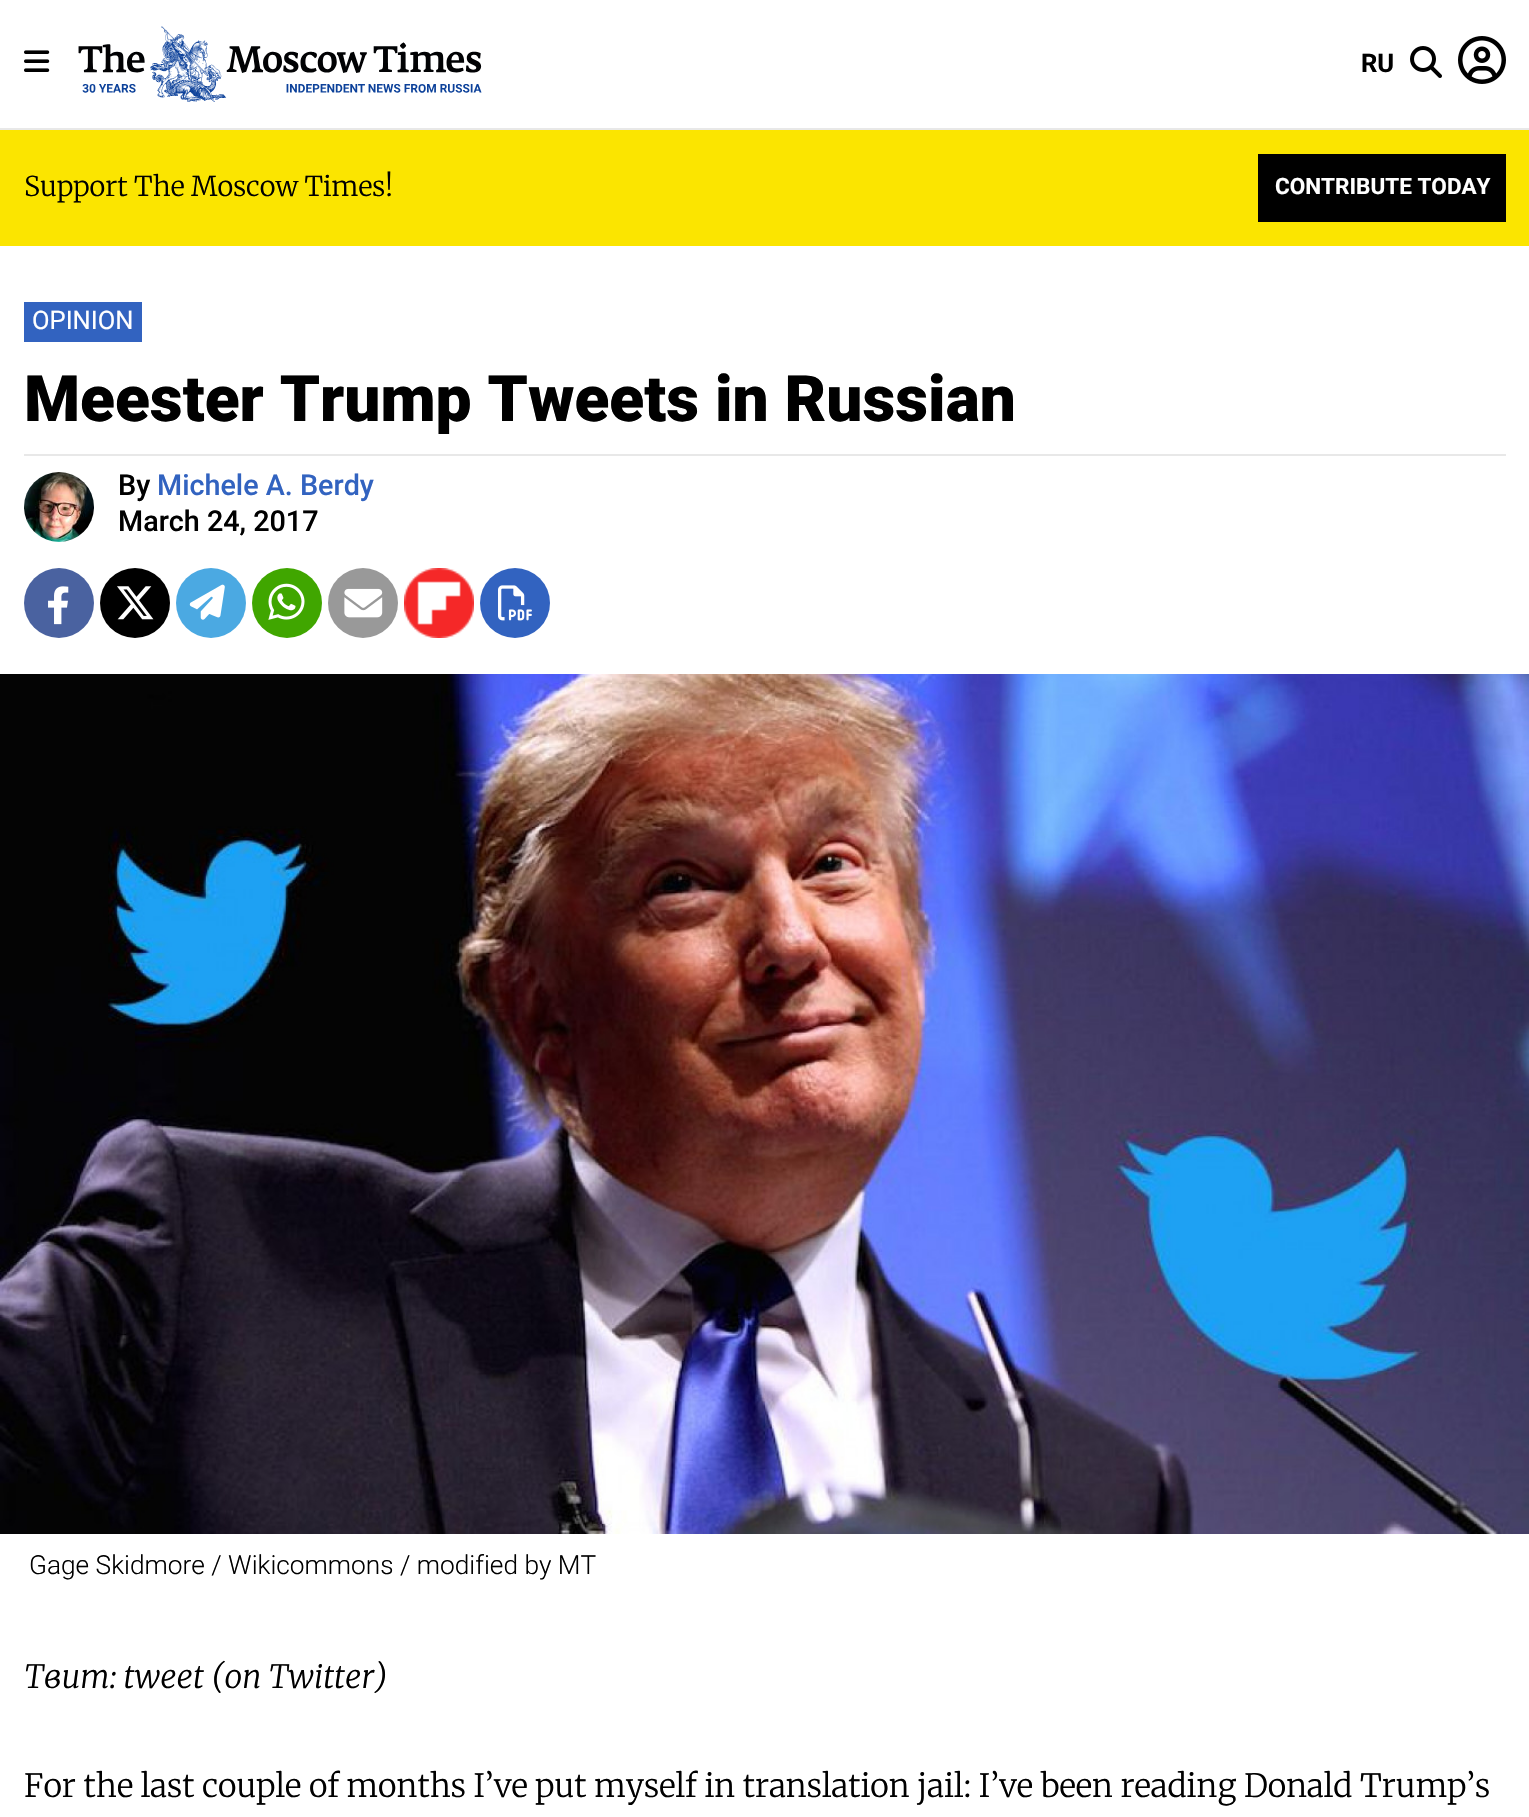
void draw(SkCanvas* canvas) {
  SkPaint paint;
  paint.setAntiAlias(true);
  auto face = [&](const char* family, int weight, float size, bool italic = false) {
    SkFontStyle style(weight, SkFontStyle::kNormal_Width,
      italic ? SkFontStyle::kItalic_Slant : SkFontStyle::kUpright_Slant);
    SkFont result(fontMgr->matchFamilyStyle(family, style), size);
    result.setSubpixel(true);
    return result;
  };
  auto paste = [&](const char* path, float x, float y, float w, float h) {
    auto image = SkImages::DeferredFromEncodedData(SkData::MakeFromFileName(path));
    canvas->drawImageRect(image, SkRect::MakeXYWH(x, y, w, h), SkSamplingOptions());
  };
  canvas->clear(0xffffffff);
  paint.setColor(0xffe8e8e8);
  canvas->drawRect(SkRect::MakeXYWH(0, 128, 1529, 2), paint);
  paste("img/1.png", 24, 50, 26, 22);
  paste("img/2.png", 78, 26, 404, 76);
  paste("img/3.png", 1410, 46, 32, 32);
  paste("img/4.png", 1458, 36, 48, 48);
  {
    const struct { float x, y, w, h; SkColor color; } items[] = {
      {0, 130, 1529, 116, 0xfffbe500},
      {1258, 154, 248, 68, 0xff000000},
      {24, 302, 118, 40, 0xff3263c0},
      {24, 454, 1482, 2, 0xffe8e8e8},
    };
    for (auto [x, y, w, h, color] : items) {
      paint.setColor(color);
      canvas->drawRect(SkRect::MakeXYWH(x, y, w, h), paint);
    }
  }
  paste("img/5.png", 24, 472, 70, 70);
  paint.setColor(0xff4a62a0);
  canvas->drawCircle(59, 603, 35, paint);
  paste("img/6.png", 48, 586, 21, 39);
  paint.setColor(0xff000000);
  canvas->drawCircle(135, 603, 35, paint);
  paste("img/7.png", 117, 586, 37, 34);
  paint.setColor(0xff4ba9e2);
  canvas->drawCircle(211, 603, 35, paint);
  paste("img/8.png", 189, 584, 36, 36);
  paint.setColor(0xff40a600);
  canvas->drawCircle(287, 603, 35, paint);
  paste("img/9.png", 268, 583, 37, 37);
  paint.setColor(0xff999999);
  canvas->drawCircle(363, 603, 35, paint);
  paste("img/10.png", 344, 588, 39, 30);
  paint.setColor(0xffe8e8e8);
  canvas->drawCircle(439, 603, 35, paint);
  paste("img/11.png", 404, 568, 70, 70);
  paint.setColor(0xff3263c0);
  canvas->drawCircle(515, 603, 35, paint);
  paste("img/12.png", 498, 585, 34, 36);
  paste("img/13.png", 0, 674, 1529, 860);
  auto f0 = face("Roboto", 700, 25.5f);
  paint.setColor(0xff000000);
  canvas->drawString("RU", 1361, 72, f0, paint);
  auto f1 = face("Merriweather", 300, 27.25f);
  canvas->drawString("Support The Moscow Times!", 24, 196, f1, paint);
  auto f2 = face("Roboto", 700, 22.5f);
  paint.setColor(0xffffffff);
  canvas->drawString("CONTRIBUTE TODAY", 1275, 194, f2, paint);
  auto f3 = face("Roboto", 400, 25.5f);
  canvas->drawString("OPINION", 32, 329, f3, paint);
  auto f4 = face("Roboto", 900, 64);
  paint.setColor(0xff000000);
  canvas->drawString("Meester Trump Tweets in Russian", 24, 421, f4, paint);
  auto f5 = face("Roboto", 500, 28.75f);
  canvas->drawString("By", 118, 495, f5, paint);
  paint.setColor(0xff3263c0);
  canvas->drawString("Michele A. Berdy", 157, 495, f5, paint);
  paint.setColor(0xff000000);
  canvas->drawString("March 24, 2017", 118, 531, f5, paint);
  auto f6 = face("Roboto", 300, 26.25f);
  canvas->drawString("Gage Skidmore / Wikicommons / modified by MT", 29, 1574, f6, paint);
  auto f7 = face("Merriweather", 300, 32, true);
  canvas->drawString("Твит: tweet (on Twitter)", 24, 1688, f7, paint);
  auto f8 = face("Merriweather", 300, 32);
  canvas->drawString("For the last couple of months I’ve put myself in translation jail: I’ve been reading Donald Trump’s", 24, 1797, f8, paint);
}
